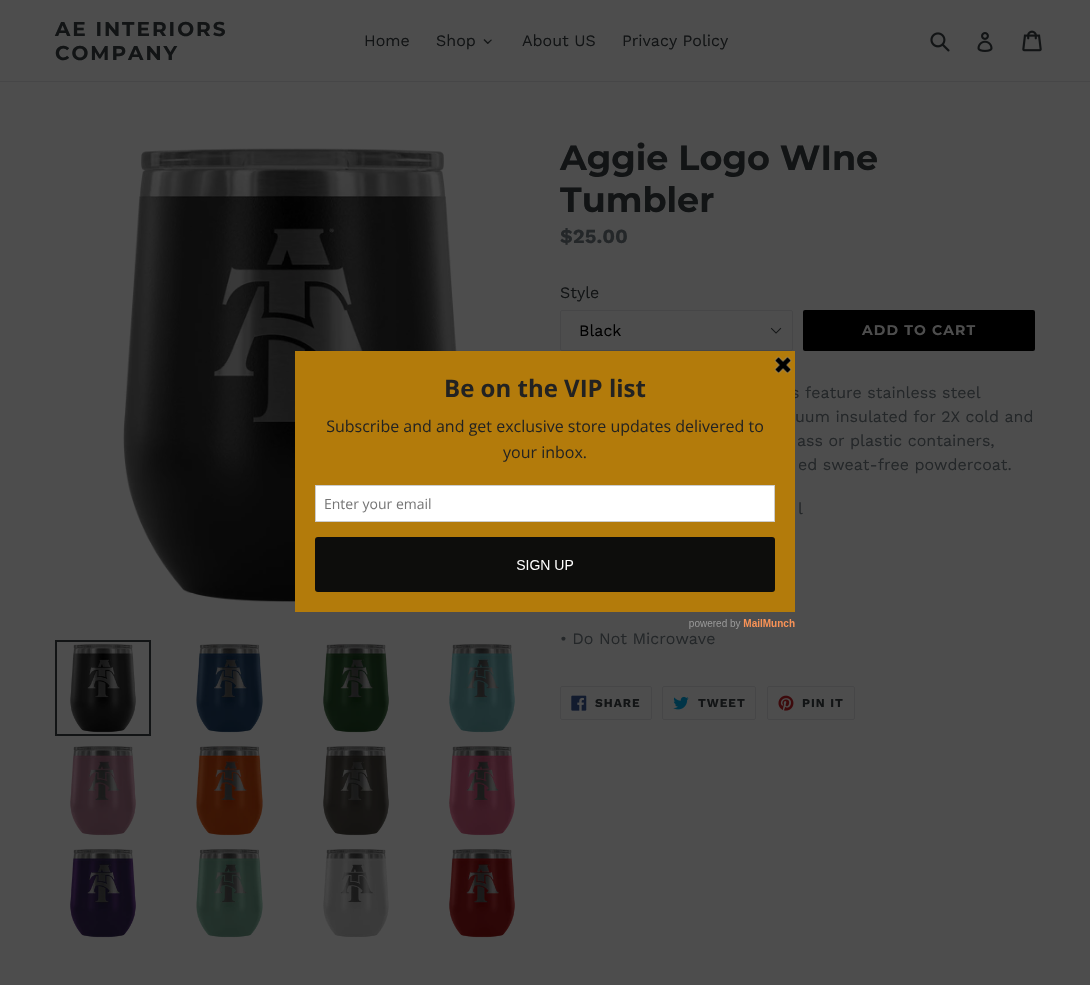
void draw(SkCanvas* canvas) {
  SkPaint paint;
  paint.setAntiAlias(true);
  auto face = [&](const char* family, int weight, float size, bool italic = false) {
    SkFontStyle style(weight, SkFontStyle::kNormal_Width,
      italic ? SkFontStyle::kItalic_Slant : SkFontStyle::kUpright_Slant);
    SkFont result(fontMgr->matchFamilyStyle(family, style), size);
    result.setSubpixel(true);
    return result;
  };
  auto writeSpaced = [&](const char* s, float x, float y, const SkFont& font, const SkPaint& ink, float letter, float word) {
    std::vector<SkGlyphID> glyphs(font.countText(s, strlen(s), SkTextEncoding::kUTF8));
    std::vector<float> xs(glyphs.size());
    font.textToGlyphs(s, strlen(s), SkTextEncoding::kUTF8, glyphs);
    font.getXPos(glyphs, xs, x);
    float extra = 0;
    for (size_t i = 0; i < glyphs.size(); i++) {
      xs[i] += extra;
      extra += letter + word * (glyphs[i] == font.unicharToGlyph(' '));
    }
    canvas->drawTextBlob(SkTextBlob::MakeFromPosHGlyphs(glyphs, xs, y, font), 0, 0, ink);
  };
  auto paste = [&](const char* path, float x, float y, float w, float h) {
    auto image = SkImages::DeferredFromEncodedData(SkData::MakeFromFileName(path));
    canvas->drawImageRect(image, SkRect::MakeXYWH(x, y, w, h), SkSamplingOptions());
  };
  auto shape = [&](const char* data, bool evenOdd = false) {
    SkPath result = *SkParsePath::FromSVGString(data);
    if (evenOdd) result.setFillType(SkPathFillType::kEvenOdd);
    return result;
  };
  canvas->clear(0xff4d4d4d);
  paint.setColor(0xff464647);
  canvas->drawRect(SkRect::MakeXYWH(0, 81, 1090, 1), paint);
  paint.setColor(0xff121415);
  canvas->drawPath(shape("M491 39.5L492 40L488 44L487 43Z"), paint);
  canvas->drawPath(shape("M484.5 39L488.5 43L487.5 44L483.5 40Z"), paint);
  paste("img/1.png", 930, 32, 20, 20);
  paste("img/2.png", 977, 32, 16, 20);
  paste("img/3.png", 1022, 30, 20, 22);
  paste("img/5.png", 123, 148, 334, 454);
  paint.setStroke(true);
  paint.setStrokeWidth(2);
  canvas->drawRect(SkRect::MakeXYWH(56, 641, 94, 94), paint);
  paste("img/6.png", 70, 644, 66, 89);
  paste("img/7.png", 196, 644, 67, 89);
  paste("img/8.png", 323, 644, 66, 89);
  paste("img/9.png", 449, 644, 66, 89);
  paste("img/10.png", 70, 746, 66, 90);
  paste("img/11.png", 196, 746, 67, 90);
  paste("img/12.png", 323, 746, 66, 90);
  paste("img/13.png", 449, 746, 66, 90);
  paste("img/14.png", 70, 849, 66, 89);
  paste("img/15.png", 196, 849, 67, 89);
  paste("img/16.png", 323, 849, 66, 88);
  paste("img/17.png", 449, 849, 66, 89);
  paste("img/18.png", 770, 327, 12, 7);
  paint.setStrokeWidth(1);
  paint.setColor(0xff464647);
  canvas->drawRoundRect(SkRect::MakeXYWH(560.5f, 310.5f, 232, 40), 1.5f, 1.5f, paint);
  paint.setStroke(false);
  paint.setColor(0xff000000);
  canvas->drawRoundRect(SkRect::MakeXYWH(803, 310, 232, 41), 2, 2, paint);
  paint.setStroke(true);
  paint.setColor(0xff464647);
  canvas->drawRoundRect(SkRect::MakeXYWH(560.5f, 686.5f, 91, 33), 1.5f, 1.5f, paint);
  paste("img/19.png", 571, 695, 16, 16);
  canvas->drawRoundRect(SkRect::MakeXYWH(662.5f, 686.5f, 93, 33), 1.5f, 1.5f, paint);
  paste("img/20.png", 673, 696, 16, 14);
  canvas->drawRoundRect(SkRect::MakeXYWH(767.5f, 686.5f, 87, 33), 1.5f, 1.5f, paint);
  paste("img/21.png", 778, 695, 16, 16);
  auto f0 = face("Montserrat", 100, 20);
  paint.setStroke(false);
  paint.setColor(0xff121415);
  writeSpaced("AE INTERIORS", 55, 36, f0, paint, 2, 0);
  writeSpaced("COMPANY", 55, 60, f0, paint, 2, 0);
  auto f1 = face("Work Sans", 400, 16);
  {
    const struct { const char* s; float x, y; } items[] = {
      {"Home", 364, 46},
      {"Shop", 436, 46},
      {"About US", 522, 46},
      {"Privacy Policy", 622, 46},
    };
    for (auto [s, x, y] : items) {
      canvas->drawString(s, x, y, f1, paint);
    }
  }
  auto f2 = face("Montserrat", 100, 35);
  canvas->drawString("Aggie Logo WIne", 560, 170, f2, paint);
  canvas->drawString("Tumbler", 560, 212, f2, paint);
  auto f3 = face("Work Sans", 700, 20);
  paint.setColor(0xff242729);
  canvas->drawString("$25.00", 560, 243, f3, paint);
  paint.setColor(0xff121415);
  canvas->drawString("Style", 560, 298, f1, paint);
  paint.setColor(0xff000000);
  canvas->drawString("Black", 579, 336, f1, paint);
  auto f4 = face("Montserrat", 100, 14);
  paint.setColor(0xff4d4d4d);
  writeSpaced("ADD TO CART", 862, 335, f4, paint, 1.1f, 0);
  paint.setColor(0xff242729);
  canvas->drawString("s feature stainless steel", 791, 398, f1, paint);
  paste("img/4.png", 295, 351, 500, 278);
  {
    const struct { const char* s; float x, y; } items[] = {
      {"uum insulated for 2X cold and", 795, 422},
      {"ass or plastic containers,", 797, 446},
      {"ed sweat-free powdercoat.", 798, 470},
      {"l", 798, 514},
      {"• Do Not Microwave", 560, 644},
    };
    for (auto [s, x, y] : items) {
      canvas->drawString(s, x, y, f1, paint);
    }
  }
  auto f5 = face("Work Sans", 700, 12);
  paint.setColor(0xff121415);
  {
    const struct { const char* s; float x, y; } items[] = {
      {"SHARE", 595, 707},
      {"TWEET", 698, 707},
      {"PIN IT", 802, 707},
    };
    for (auto [s, x, y] : items) {
      writeSpaced(s, x, y, f5, paint, 1, 0);
    }
  }
}
